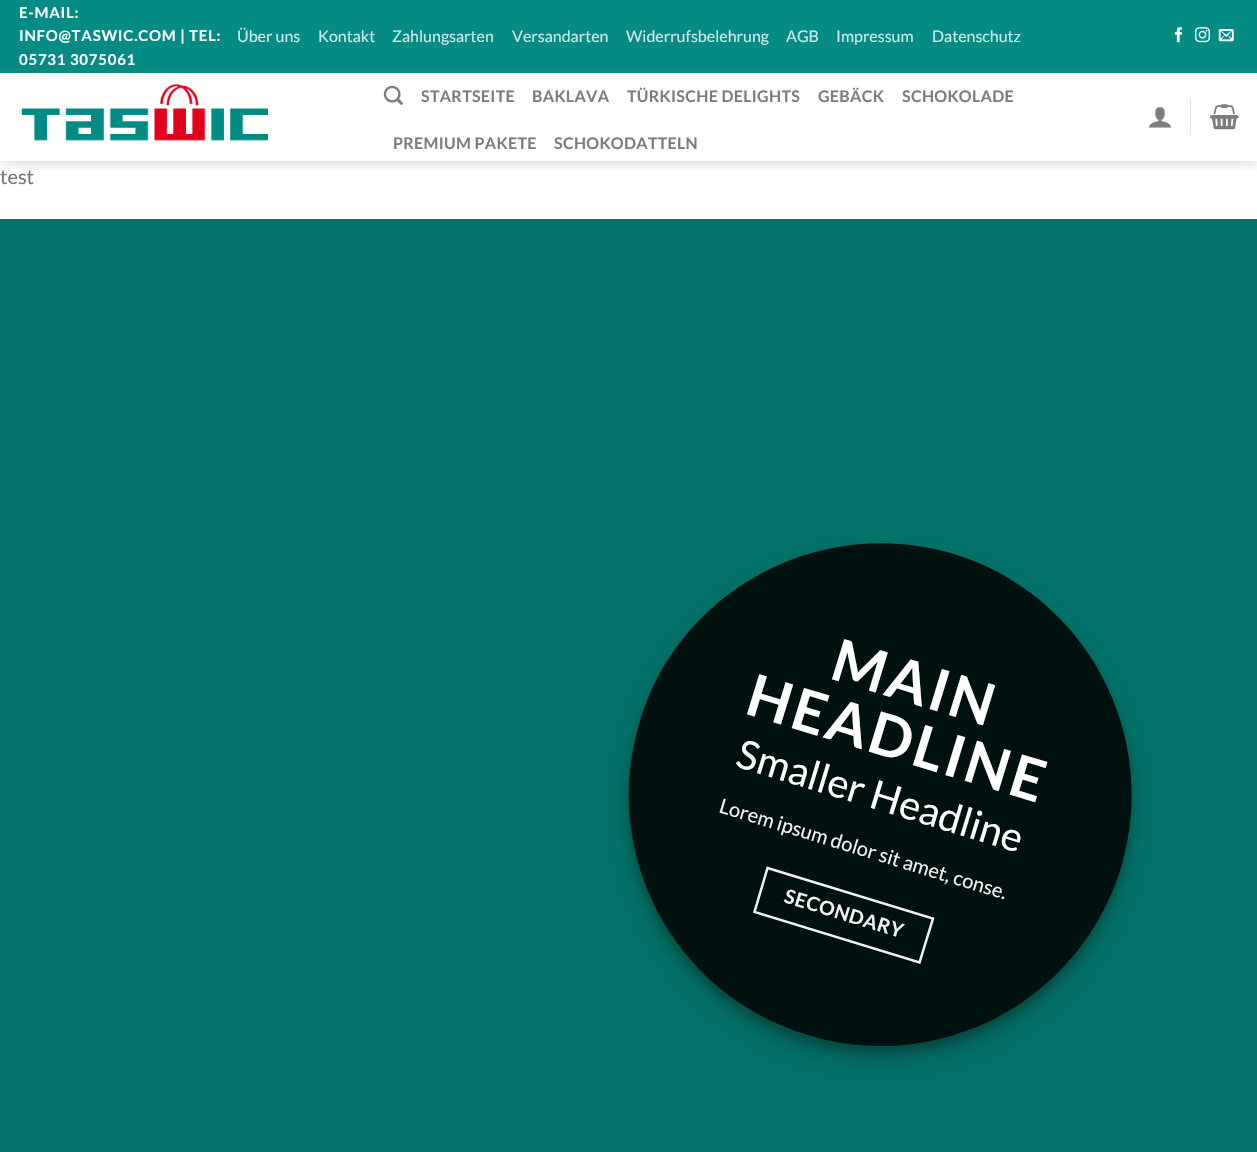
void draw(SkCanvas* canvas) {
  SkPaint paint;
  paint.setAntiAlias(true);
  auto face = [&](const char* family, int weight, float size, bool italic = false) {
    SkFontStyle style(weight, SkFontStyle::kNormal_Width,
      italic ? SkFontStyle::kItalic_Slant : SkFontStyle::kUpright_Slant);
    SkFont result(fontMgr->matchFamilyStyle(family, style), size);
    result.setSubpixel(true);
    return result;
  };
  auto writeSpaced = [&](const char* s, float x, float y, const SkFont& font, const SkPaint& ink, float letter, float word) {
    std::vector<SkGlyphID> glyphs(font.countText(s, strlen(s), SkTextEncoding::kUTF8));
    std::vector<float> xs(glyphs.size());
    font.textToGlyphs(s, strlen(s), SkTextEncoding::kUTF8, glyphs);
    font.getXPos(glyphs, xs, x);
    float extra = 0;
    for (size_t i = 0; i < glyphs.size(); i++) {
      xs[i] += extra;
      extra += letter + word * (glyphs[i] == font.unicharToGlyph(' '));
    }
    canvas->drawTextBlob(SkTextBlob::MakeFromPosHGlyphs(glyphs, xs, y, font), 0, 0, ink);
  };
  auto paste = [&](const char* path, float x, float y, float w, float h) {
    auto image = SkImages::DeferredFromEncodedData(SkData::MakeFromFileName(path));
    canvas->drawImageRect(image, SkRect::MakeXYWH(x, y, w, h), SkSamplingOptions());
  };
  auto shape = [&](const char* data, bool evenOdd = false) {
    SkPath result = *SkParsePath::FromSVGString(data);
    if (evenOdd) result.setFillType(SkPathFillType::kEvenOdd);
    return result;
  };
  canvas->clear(0xffffffff);
  canvas->save();
  canvas->clipRect(SkRect::MakeXYWH(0, 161, 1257, 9));
  paint.setColor(0x26000000);
  paint.setMaskFilter(SkMaskFilter::MakeBlur(kNormal_SkBlurStyle, 6));
  canvas->drawRect(SkRect::MakeXYWH(1, 1, 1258, 162), paint);
  paint.setMaskFilter(nullptr);
  canvas->restore();
  paint.setColor(0xff048c84);
  canvas->drawRect(SkRect::MakeXYWH(0, 0, 1257, 73), paint);
  paste("img/1.png", 1175, 27, 7, 16);
  paste("img/2.png", 1195, 27, 15, 16);
  paste("img/3.png", 1218, 29, 16, 13);
  paste("img/4.png", 21, 83, 248, 58);
  paste("img/5.png", 383, 85, 20, 20);
  paste("img/6.png", 1149, 107, 22, 21);
  paint.setColor(0xffe6e6e6);
  canvas->drawRect(SkRect::MakeXYWH(1190, 98, 1, 37), paint);
  paste("img/7.png", 1210, 104, 29, 26);
  paint.setColor(0xffe2e2e2);
  canvas->drawRect(SkRect::MakeXYWH(19, 161, 1220, 1), paint);
  paint.setColor(0xff037268);
  canvas->drawRect(SkRect::MakeXYWH(0, 219, 1257, 933), paint);
  canvas->save();
  canvas->clipPath(shape("M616 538H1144V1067H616ZM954 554.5C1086.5 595 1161.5 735.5 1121 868.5C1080 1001.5 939.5 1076 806.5 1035.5C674 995 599 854 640 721.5C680.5 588.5 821 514 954 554.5Z", true), true);
  paint.setColor(0x38000000);
  paint.setMaskFilter(SkMaskFilter::MakeBlur(kNormal_SkBlurStyle, 4));
  canvas->drawRoundRect(SkRect::MakeXYWH(629, 551, 502, 503), 251, 251, paint);
  paint.setMaskFilter(nullptr);
  canvas->restore();
  canvas->save();
  canvas->clipPath(shape("M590 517H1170V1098H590ZM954 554.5C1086.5 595 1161.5 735.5 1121 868.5C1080 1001.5 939.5 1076 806.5 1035.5C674 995 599 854 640 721.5C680.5 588.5 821 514 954 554.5Z", true), true);
  paint.setColor(0x30000000);
  paint.setMaskFilter(SkMaskFilter::MakeBlur(kNormal_SkBlurStyle, 12.5f));
  canvas->drawRoundRect(SkRect::MakeXYWH(629, 556, 502, 503), 251, 251, paint);
  paint.setMaskFilter(nullptr);
  canvas->restore();
  paint.setColor(0xdb000000);
  canvas->drawPath(shape("M954 554C1087 595 1161 736 1121 868C1080 1001 940 1076 807 1035C674 995 599 854 640 721C680 589 821 514 954 554Z"), paint);
  paint.setStroke(true);
  paint.setStrokeWidth(2.5f);
  paint.setColor(0xfff1f1f1);
  canvas->drawPath(shape("M767.5 868L933 918.5L919.5 962.5L754.5 912Z"), paint);
  auto f0 = face("Lato", 700, 15);
  paint.setStroke(false);
  paint.setColor(0xffffffff);
  {
    const struct { const char* s; float x, y; } items[] = {
      {"E-MAIL:", 19, 18},
      {"INFO@TASWIC.COM | TEL:", 19, 41},
      {"05731 3075061", 19, 65},
    };
    for (auto [s, x, y] : items) {
      writeSpaced(s, x, y, f0, paint, 0.75f, 0);
    }
  }
  auto f1 = face("Lato", 400, 16);
  paint.setColor(0xffcde8e6);
  {
    const struct { const char* s; float x, y; } items[] = {
      {"Über uns", 237, 42},
      {"Kontakt", 318, 42},
      {"Zahlungsarten", 392, 42},
      {"Versandarten", 512, 42},
      {"Widerrufsbelehrung", 626, 42},
      {"AGB", 786, 42},
      {"Impressum", 836, 42},
      {"Datenschutz", 932, 42},
    };
    for (auto [s, x, y] : items) {
      canvas->drawString(s, x, y, f1, paint);
    }
  }
  auto f2 = face("Lato", 700, 16);
  paint.setColor(0xff7d7d7d);
  {
    const struct { const char* s; float x, y; } items[] = {
      {"STARTSEITE", 421, 102},
      {"BAKLAVA", 532, 102},
      {"TÜRKISCHE DELIGHTS", 627, 102},
      {"GEBÄCK", 818, 102},
      {"SCHOKOLADE", 902, 102},
      {"PREMIUM PAKETE", 393, 149},
      {"SCHOKODATTELN", 554, 149},
    };
    for (auto [s, x, y] : items) {
      writeSpaced(s, x, y, f2, paint, 0.3f, 0);
    }
  }
  auto f3 = face("Lato", 400, 20);
  paint.setColor(0xff777777);
  canvas->drawString("test", 0, 184, f3, paint);
  auto f4 = face("Lato", 700, 58);
  paint.setColor(0xffffffff);
  canvas->save();
  canvas->rotate(17, 828, 678);
  writeSpaced("MAIN", 828, 678, f4, paint, 3, 0);
  canvas->restore();
  canvas->save();
  canvas->rotate(17, 743, 713);
  writeSpaced("HEADLINE", 743, 713, f4, paint, 3, 0);
  canvas->restore();
  auto f5 = face("Lato", 400, 40);
  canvas->save();
  canvas->rotate(17, 734, 766);
  canvas->drawString("Smaller Headline", 734, 766, f5, paint);
  canvas->restore();
  paint.setColor(0xfff1f1f1);
  canvas->save();
  canvas->rotate(17, 718, 812);
  canvas->drawString("Lorem ipsum dolor sit amet, conse.", 718, 812, f3, paint);
  canvas->restore();
  auto f6 = face("Lato", 700, 19.5f);
  canvas->save();
  canvas->rotate(17, 783, 902);
  writeSpaced("SECONDARY", 783, 902, f6, paint, 0.5f, 0);
  canvas->restore();
}
